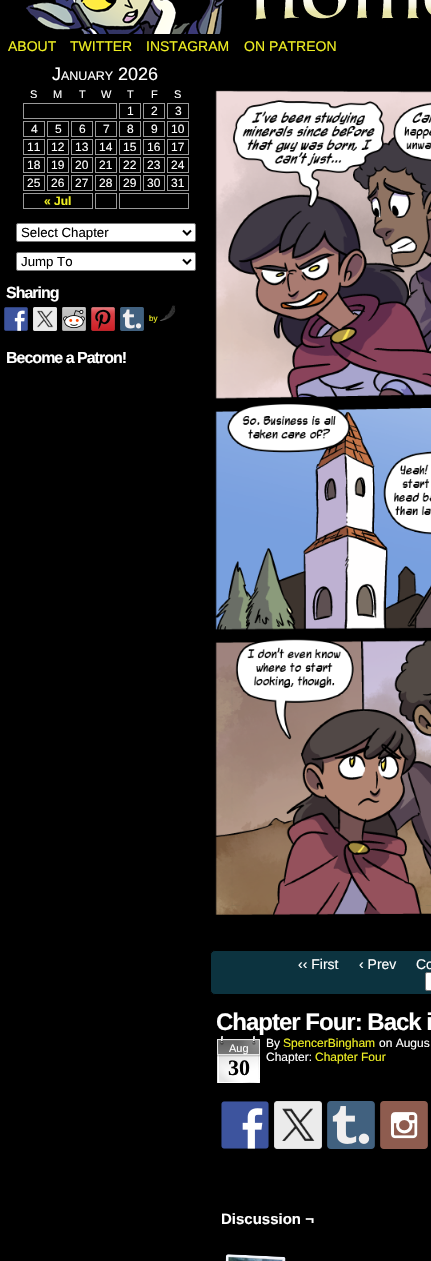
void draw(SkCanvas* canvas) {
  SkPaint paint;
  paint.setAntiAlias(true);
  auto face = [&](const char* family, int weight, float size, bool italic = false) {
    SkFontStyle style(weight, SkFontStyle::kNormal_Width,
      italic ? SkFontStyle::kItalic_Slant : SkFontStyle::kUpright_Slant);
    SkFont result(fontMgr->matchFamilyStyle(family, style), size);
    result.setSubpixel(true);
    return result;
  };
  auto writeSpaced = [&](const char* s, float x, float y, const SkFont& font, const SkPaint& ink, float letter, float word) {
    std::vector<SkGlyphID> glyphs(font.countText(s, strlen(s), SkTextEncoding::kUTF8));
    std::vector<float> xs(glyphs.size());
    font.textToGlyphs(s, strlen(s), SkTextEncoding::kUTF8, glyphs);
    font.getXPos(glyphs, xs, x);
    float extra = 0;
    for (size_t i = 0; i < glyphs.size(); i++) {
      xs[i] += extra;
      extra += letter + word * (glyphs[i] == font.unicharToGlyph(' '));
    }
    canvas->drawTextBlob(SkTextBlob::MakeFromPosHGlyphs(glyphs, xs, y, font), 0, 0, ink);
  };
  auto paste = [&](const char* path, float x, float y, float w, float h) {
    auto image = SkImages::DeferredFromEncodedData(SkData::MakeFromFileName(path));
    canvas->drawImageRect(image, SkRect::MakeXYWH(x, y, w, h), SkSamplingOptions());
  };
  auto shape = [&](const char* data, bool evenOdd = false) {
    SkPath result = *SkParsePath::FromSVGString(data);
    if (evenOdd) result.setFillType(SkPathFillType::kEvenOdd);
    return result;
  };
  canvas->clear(0xff000000);
  paste("img/1.png", 26, 0, 405, 34);
  paint.setStroke(true);
  paint.setStrokeWidth(1);
  paint.setColor(0xff999999);
  canvas->drawRect(SkRect::MakeXYWH(23.5f, 103.5f, 93, 15), paint);
  canvas->drawRect(SkRect::MakeXYWH(119.5f, 103.5f, 21, 15), paint);
  canvas->drawRect(SkRect::MakeXYWH(143.5f, 103.5f, 21, 15), paint);
  canvas->drawRect(SkRect::MakeXYWH(167.5f, 103.5f, 21, 15), paint);
  canvas->drawRect(SkRect::MakeXYWH(23.5f, 121.5f, 21, 15), paint);
  canvas->drawRect(SkRect::MakeXYWH(47.5f, 121.5f, 21, 15), paint);
  canvas->drawRect(SkRect::MakeXYWH(71.5f, 121.5f, 21, 15), paint);
  canvas->drawRect(SkRect::MakeXYWH(95.5f, 121.5f, 21, 15), paint);
  canvas->drawRect(SkRect::MakeXYWH(119.5f, 121.5f, 21, 15), paint);
  canvas->drawRect(SkRect::MakeXYWH(143.5f, 121.5f, 21, 15), paint);
  canvas->drawRect(SkRect::MakeXYWH(167.5f, 121.5f, 21, 15), paint);
  canvas->drawRect(SkRect::MakeXYWH(23.5f, 139.5f, 21, 15), paint);
  canvas->drawRect(SkRect::MakeXYWH(47.5f, 139.5f, 21, 15), paint);
  canvas->drawRect(SkRect::MakeXYWH(71.5f, 139.5f, 21, 15), paint);
  canvas->drawRect(SkRect::MakeXYWH(95.5f, 139.5f, 21, 15), paint);
  canvas->drawRect(SkRect::MakeXYWH(119.5f, 139.5f, 21, 15), paint);
  canvas->drawRect(SkRect::MakeXYWH(143.5f, 139.5f, 21, 15), paint);
  canvas->drawRect(SkRect::MakeXYWH(167.5f, 139.5f, 21, 15), paint);
  canvas->drawRect(SkRect::MakeXYWH(23.5f, 157.5f, 21, 15), paint);
  canvas->drawRect(SkRect::MakeXYWH(47.5f, 157.5f, 21, 15), paint);
  canvas->drawRect(SkRect::MakeXYWH(71.5f, 157.5f, 21, 15), paint);
  canvas->drawRect(SkRect::MakeXYWH(95.5f, 157.5f, 21, 15), paint);
  canvas->drawRect(SkRect::MakeXYWH(119.5f, 157.5f, 21, 15), paint);
  canvas->drawRect(SkRect::MakeXYWH(143.5f, 157.5f, 21, 15), paint);
  canvas->drawRect(SkRect::MakeXYWH(167.5f, 157.5f, 21, 15), paint);
  canvas->drawRect(SkRect::MakeXYWH(23.5f, 175.5f, 21, 15), paint);
  canvas->drawRect(SkRect::MakeXYWH(47.5f, 175.5f, 21, 15), paint);
  canvas->drawRect(SkRect::MakeXYWH(71.5f, 175.5f, 21, 15), paint);
  canvas->drawRect(SkRect::MakeXYWH(95.5f, 175.5f, 21, 15), paint);
  canvas->drawRect(SkRect::MakeXYWH(119.5f, 175.5f, 21, 15), paint);
  canvas->drawRect(SkRect::MakeXYWH(143.5f, 175.5f, 21, 15), paint);
  canvas->drawRect(SkRect::MakeXYWH(167.5f, 175.5f, 21, 15), paint);
  canvas->drawRect(SkRect::MakeXYWH(23.5f, 193.5f, 69, 15), paint);
  canvas->drawRect(SkRect::MakeXYWH(95.5f, 193.5f, 21, 15), paint);
  canvas->drawRect(SkRect::MakeXYWH(119.5f, 193.5f, 69, 15), paint);
  paint.setStroke(false);
  paint.setColor(0xffffffff);
  canvas->drawRoundRect(SkRect::MakeXYWH(16.5f, 223.5f, 179, 18), 1.5f, 1.5f, paint);
  paint.setStroke(true);
  paint.setColor(0xff767676);
  canvas->drawRoundRect(SkRect::MakeXYWH(16.5f, 223.5f, 179, 18), 1.5f, 1.5f, paint);
  paint.setStrokeWidth(2);
  paint.setColor(0xff000000);
  canvas->drawPath(shape("M183 230.5L187 234.5L191 230.5"), paint);
  paint.setStroke(false);
  paint.setColor(0xffffffff);
  canvas->drawRoundRect(SkRect::MakeXYWH(16.5f, 252.5f, 179, 18), 1.5f, 1.5f, paint);
  paint.setStroke(true);
  paint.setStrokeWidth(1);
  paint.setColor(0xff767676);
  canvas->drawRoundRect(SkRect::MakeXYWH(16.5f, 252.5f, 179, 18), 1.5f, 1.5f, paint);
  paint.setStrokeWidth(2);
  paint.setColor(0xff000000);
  canvas->drawPath(shape("M183 259.5L187 263.5L191 259.5"), paint);
  paste("img/2.png", 4, 307, 24, 24);
  paste("img/3.png", 33, 307, 24, 24);
  paste("img/4.png", 62, 307, 24, 24);
  paste("img/5.png", 91, 307, 24, 24);
  paste("img/6.png", 120, 307, 24, 24);
  paste("img/7.png", 160, 305, 16, 16);
  paste("img/8.png", 215, 90, 216, 825);
  paint.setStroke(false);
  paint.setColor(0xff0c333f);
  canvas->drawRoundRect(SkRect::MakeXYWH(210.5f, 950.5f, 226, 44), 4.5f, 4.5f, paint);
  paint.setStroke(true);
  paint.setStrokeWidth(1);
  paint.setColor(0xff000000);
  canvas->drawRoundRect(SkRect::MakeXYWH(210.5f, 950.5f, 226, 44), 4.5f, 4.5f, paint);
  paint.setStroke(false);
  paint.setColor(0xffffffff);
  canvas->drawRoundRect(SkRect::MakeXYWH(425.5f, 972.5f, 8, 18), 1.5f, 1.5f, paint);
  paint.setStroke(true);
  paint.setColor(0xff767676);
  canvas->drawRoundRect(SkRect::MakeXYWH(425.5f, 972.5f, 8, 18), 1.5f, 1.5f, paint);
  paste("img/9.png", 217, 1036, 43, 47);
  paste("img/10.png", 221, 1101, 48, 48);
  paste("img/11.png", 274, 1101, 48, 48);
  paste("img/12.png", 327, 1101, 48, 48);
  paste("img/13.png", 380, 1101, 48, 48);
  paste("img/14.png", 225, 1254, 61, 7);
  auto f0 = face("Liberation Sans", 400, 14);
  paint.setStroke(false);
  paint.setColor(0xffeeee22);
  {
    const struct { const char* s; float x, y; } items[] = {
      {"ABOUT", 8, 51},
      {"TWITTER", 70, 51},
      {"INSTAGRAM", 146, 51},
      {"ON PATREON", 244, 51},
    };
    for (auto [s, x, y] : items) {
      canvas->drawString(s, x, y, f0, paint);
    }
  }
  auto f1 = face("Liberation Sans", 400, 18);
  paint.setColor(0xffffffff);
  canvas->drawString("J", 52, 80, f1, paint);
  auto f2 = face("Liberation Sans", 400, 12.5f);
  canvas->drawString("ANUARY", 61, 80, f2, paint);
  canvas->drawString("2026", 118, 80, f1, paint);
  auto f3 = face("Liberation Sans", 400, 11);
  {
    const struct { const char* s; float x, y; } items[] = {
      {"S", 30, 98},
      {"M", 53, 98},
      {"T", 79, 98},
      {"W", 101, 98},
      {"T", 127, 98},
      {"F", 151, 98},
      {"S", 174, 98},
    };
    for (auto [s, x, y] : items) {
      canvas->drawString(s, x, y, f3, paint);
    }
  }
  auto f4 = face("Liberation Sans", 400, 12);
  {
    const struct { const char* s; float x, y; } items[] = {
      {"1", 127, 115},
      {"2", 151, 115},
      {"3", 175, 115},
      {"4", 31, 133},
      {"5", 55, 133},
      {"6", 79, 133},
      {"7", 103, 133},
      {"8", 127, 133},
      {"9", 151, 133},
      {"10", 171, 133},
      {"11", 27, 151},
      {"12", 51, 151},
      {"13", 75, 151},
      {"14", 99, 151},
      {"15", 123, 151},
      {"16", 147, 151},
      {"17", 171, 151},
      {"18", 27, 169},
      {"19", 51, 169},
      {"20", 75, 169},
      {"21", 99, 169},
      {"22", 123, 169},
      {"23", 147, 169},
      {"24", 171, 169},
      {"25", 27, 187},
      {"26", 51, 187},
      {"27", 75, 187},
      {"28", 99, 187},
      {"29", 123, 187},
      {"30", 147, 187},
      {"31", 171, 187},
    };
    for (auto [s, x, y] : items) {
      canvas->drawString(s, x, y, f4, paint);
    }
  }
  auto f5 = face("Liberation Sans", 700, 12);
  paint.setColor(0xffeeee22);
  canvas->drawString("« Jul", 44, 205, f5, paint);
  auto f6 = face("Liberation Sans", 400, 13.25f);
  paint.setColor(0xff000000);
  canvas->drawString("Select Chapter", 21, 237, f6, paint);
  canvas->drawString("Jump To", 21, 266, f6, paint);
  auto f7 = face("Liberation Sans", 700, 16);
  paint.setColor(0xffffffff);
  writeSpaced("Sharing", 6, 298, f7, paint, -1, 0);
  auto f8 = face("Liberation Sans", 400, 8);
  paint.setColor(0xffeeee22);
  canvas->drawString("by", 149, 321, f8, paint);
  paint.setColor(0xffffffff);
  writeSpaced("Become a Patron!", 6, 363, f7, paint, -1, 0);
  {
    const struct { const char* s; float x, y; } items[] = {
      {"‹‹ First", 298, 969},
      {"‹ Prev", 359, 969},
      {"Co", 416, 969},
    };
    for (auto [s, x, y] : items) {
      canvas->drawString(s, x, y, f0, paint);
    }
  }
  auto f9 = face("Liberation Sans", 700, 24);
  writeSpaced("Chapter Four: Back i", 216, 1030, f9, paint, -1, 0);
  canvas->drawString("Aug", 229, 1052, f3, paint);
  auto f10 = face("Liberation Serif", 700, 22);
  paint.setColor(0xff000000);
  canvas->drawString("30", 228, 1075, f10, paint);
  paint.setColor(0xffffffff);
  canvas->drawString("By", 266, 1047, f4, paint);
  paint.setColor(0xffeeee22);
  canvas->drawString("SpencerBingham", 283, 1047, f4, paint);
  paint.setColor(0xffffffff);
  canvas->drawString("on Augus", 379, 1047, f4, paint);
  canvas->drawString("Chapter:", 266, 1061, f4, paint);
  paint.setColor(0xffeeee22);
  canvas->drawString("Chapter Four", 315, 1061, f4, paint);
  auto f11 = face("Liberation Sans", 700, 15);
  paint.setColor(0xffffffff);
  canvas->drawString("Discussion ¬", 221, 1224, f11, paint);
}
